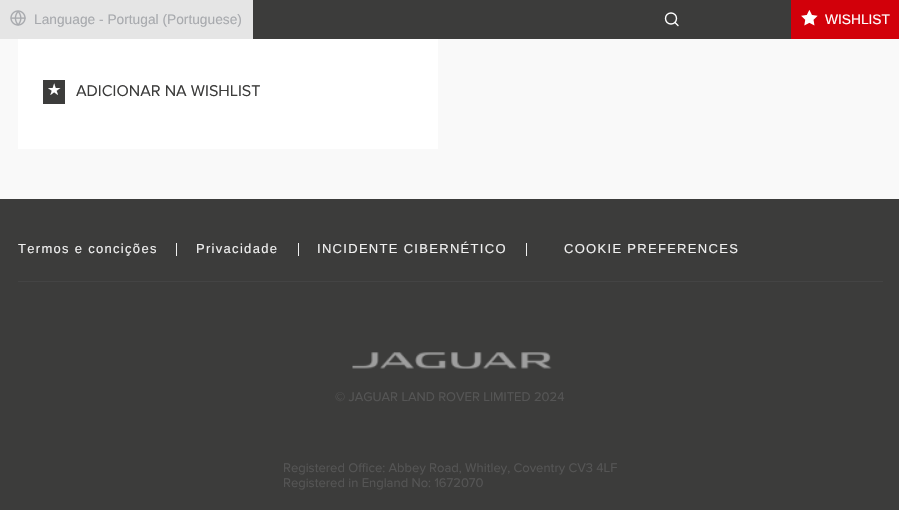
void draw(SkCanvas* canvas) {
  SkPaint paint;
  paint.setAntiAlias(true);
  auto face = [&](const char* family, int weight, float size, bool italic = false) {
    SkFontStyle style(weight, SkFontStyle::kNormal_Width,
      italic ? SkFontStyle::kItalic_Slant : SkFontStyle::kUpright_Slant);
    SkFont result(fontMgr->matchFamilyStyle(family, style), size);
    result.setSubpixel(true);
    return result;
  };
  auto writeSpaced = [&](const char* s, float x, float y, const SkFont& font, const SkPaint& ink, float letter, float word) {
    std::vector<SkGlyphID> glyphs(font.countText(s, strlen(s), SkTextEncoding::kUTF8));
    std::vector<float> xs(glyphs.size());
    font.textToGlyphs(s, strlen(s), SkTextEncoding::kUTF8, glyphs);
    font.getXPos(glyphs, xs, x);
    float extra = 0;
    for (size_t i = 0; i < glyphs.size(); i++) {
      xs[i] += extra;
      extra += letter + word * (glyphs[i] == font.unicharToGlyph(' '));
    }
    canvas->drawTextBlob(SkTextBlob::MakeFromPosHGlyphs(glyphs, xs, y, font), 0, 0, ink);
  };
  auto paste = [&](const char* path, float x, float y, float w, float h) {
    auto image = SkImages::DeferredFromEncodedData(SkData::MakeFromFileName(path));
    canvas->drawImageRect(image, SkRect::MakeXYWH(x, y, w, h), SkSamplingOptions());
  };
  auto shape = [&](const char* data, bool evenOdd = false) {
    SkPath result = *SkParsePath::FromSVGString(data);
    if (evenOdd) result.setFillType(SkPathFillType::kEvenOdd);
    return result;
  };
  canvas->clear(0xfff9f9f9);
  paint.setColor(0xff3c3c3b);
  canvas->drawRect(SkRect::MakeXYWH(253, 0, 538, 39), paint);
  paint.setColor(0xffe5e5e5);
  canvas->drawRect(SkRect::MakeXYWH(0, 0, 253, 39), paint);
  paste("img/1.png", 10, 10, 16, 16);
  paint.setStroke(true);
  paint.setStrokeWidth(1.4f);
  paint.setColor(0xffffffff);
  canvas->drawCircle(671, 18.5f, 5.5f, paint);
  paint.setStrokeCap(SkPaint::kRound_Cap);
  paint.setStrokeJoin(SkPaint::kRound_Join);
  canvas->drawPath(shape("M678 25.5L675 22.5"), paint);
  paint.setStroke(false);
  paint.setColor(0xffd2000a);
  canvas->drawRect(SkRect::MakeXYWH(791, 0, 108, 39), paint);
  paste("img/2.png", 801, 10, 17, 16);
  {
    const struct { float x, y, w, h; SkColor color; } items[] = {
      {18, 39, 420, 110, 0xffffffff},
      {43, 80, 22, 24, 0xff3c3c3b},
      {0, 199, 899, 311, 0xff3c3c3b},
      {176, 243, 1, 13, 0xfff0f0f0},
      {298, 243, 1, 13, 0xfff0f0f0},
      {526, 243, 1, 13, 0xfff0f0f0},
      {18, 281, 865, 1, 0xff444444},
    };
    for (auto [x, y, w, h, color] : items) {
      paint.setColor(color);
      canvas->drawRect(SkRect::MakeXYWH(x, y, w, h), paint);
    }
  }
  paste("img/3.png", 352, 352, 200, 17);
  auto f0 = face("Liberation Sans", 400, 13.75f);
  paint.setColor(0xffa8aaae);
  canvas->drawString("Language - Portugal (Portuguese)", 34, 24, f0, paint);
  paint.setColor(0xffffffff);
  canvas->drawString("WISHLIST", 825, 24, f0, paint);
  auto f1 = face("DejaVu Sans", 400, 16);
  canvas->drawString("★", 47, 95, f1, paint);
  auto f2 = face("Proxima Nova", 400, 16.1f);
  paint.setColor(0xff3c3c3b);
  canvas->drawString("ADICIONAR NA WISHLIST", 76, 96, f2, paint);
  auto f3 = face("Liberation Sans", 400, 13);
  paint.setColor(0xfff0f0f0);
  {
    const struct { const char* s; float x, y; } items[] = {
      {"Termos e conciҫões", 18, 253},
      {"Privacidade", 196, 253},
      {"INCIDENTE CIBERNÉTICO", 317, 253},
      {"COOKIE PREFERENCES", 564, 253},
    };
    for (auto [s, x, y] : items) {
      writeSpaced(s, x, y, f3, paint, 1.3f, 0);
    }
  }
  auto f4 = face("Proxima Nova", 400, 13);
  paint.setColor(0xff555555);
  {
    const struct { const char* s; float x, y; } items[] = {
      {"© JAGUAR LAND ROVER LIMITED 2024", 335, 401},
      {"Registered Office: Abbey Road, Whitley, Coventry CV3 4LF", 283, 472},
      {"Registered in England No: 1672070", 283, 487},
    };
    for (auto [s, x, y] : items) {
      canvas->drawString(s, x, y, f4, paint);
    }
  }
}
